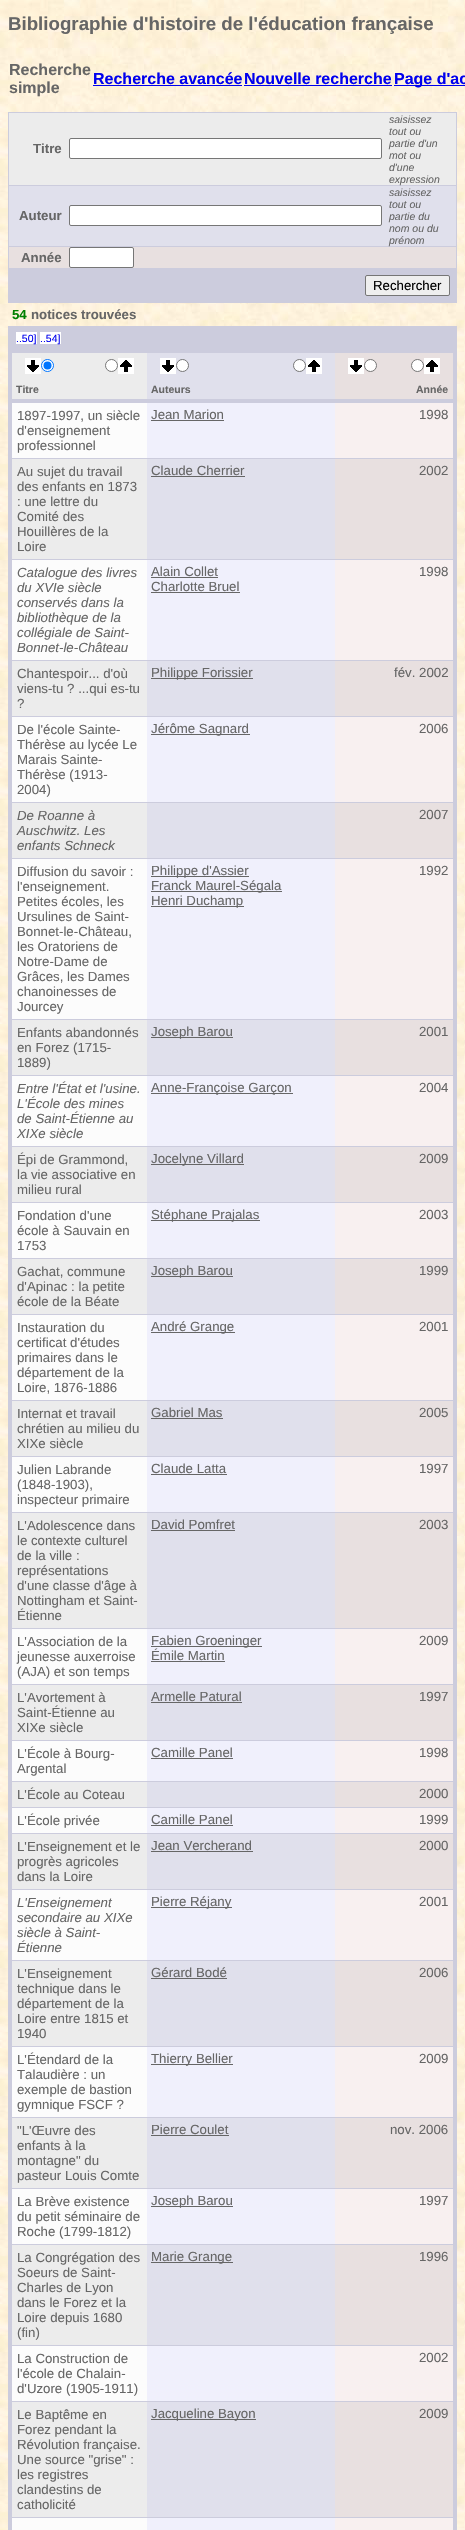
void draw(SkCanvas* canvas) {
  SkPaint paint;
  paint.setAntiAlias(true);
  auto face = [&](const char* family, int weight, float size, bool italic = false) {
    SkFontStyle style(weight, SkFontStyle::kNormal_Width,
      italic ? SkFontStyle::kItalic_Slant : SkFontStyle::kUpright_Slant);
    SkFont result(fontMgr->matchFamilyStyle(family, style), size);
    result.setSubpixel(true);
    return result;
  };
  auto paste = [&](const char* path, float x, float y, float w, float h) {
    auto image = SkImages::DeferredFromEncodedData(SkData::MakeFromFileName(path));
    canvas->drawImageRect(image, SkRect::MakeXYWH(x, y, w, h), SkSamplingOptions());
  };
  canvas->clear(0xffffffff);
  paste("img/1.png", 0, 0, 465, 2530);
  {
    const struct { float x, y, w, h; SkColor color; } items[] = {
      {93, 85, 149, 1, 0xff0000ee},
      {244, 85, 148, 1, 0xff0000ee},
      {394, 85, 71, 1, 0xff0000ee},
      {8, 112, 449, 191, 0xffccccdd},
      {9, 113, 447, 72, 0xffececec},
    };
    for (auto [x, y, w, h, color] : items) {
      paint.setColor(color);
      canvas->drawRect(SkRect::MakeXYWH(x, y, w, h), paint);
    }
  }
  paint.setColor(0xffffffff);
  canvas->drawRoundRect(SkRect::MakeXYWH(69.5f, 138.5f, 312, 20), 1.5f, 1.5f, paint);
  paint.setStroke(true);
  paint.setStrokeWidth(1);
  paint.setColor(0xff767676);
  canvas->drawRoundRect(SkRect::MakeXYWH(69.5f, 138.5f, 312, 20), 1.5f, 1.5f, paint);
  paint.setStroke(false);
  paint.setColor(0xffe0e0ec);
  canvas->drawRect(SkRect::MakeXYWH(9, 186, 447, 60), paint);
  paint.setColor(0xffffffff);
  canvas->drawRoundRect(SkRect::MakeXYWH(69.5f, 205.5f, 312, 20), 1.5f, 1.5f, paint);
  paint.setStroke(true);
  paint.setColor(0xff767676);
  canvas->drawRoundRect(SkRect::MakeXYWH(69.5f, 205.5f, 312, 20), 1.5f, 1.5f, paint);
  paint.setStroke(false);
  paint.setColor(0xffe8e0e0);
  canvas->drawRect(SkRect::MakeXYWH(9, 247, 447, 21), paint);
  paint.setColor(0xffffffff);
  canvas->drawRoundRect(SkRect::MakeXYWH(69.5f, 247.5f, 64, 20), 1.5f, 1.5f, paint);
  paint.setStroke(true);
  paint.setColor(0xff767676);
  canvas->drawRoundRect(SkRect::MakeXYWH(69.5f, 247.5f, 64, 20), 1.5f, 1.5f, paint);
  paint.setStroke(false);
  paint.setColor(0xffefefef);
  canvas->drawRoundRect(SkRect::MakeXYWH(365.5f, 275.5f, 84, 20), 1.5f, 1.5f, paint);
  paint.setStroke(true);
  paint.setColor(0xff767676);
  canvas->drawRoundRect(SkRect::MakeXYWH(365.5f, 275.5f, 84, 20), 1.5f, 1.5f, paint);
  paint.setStroke(false);
  {
    const struct { float x, y, w, h; SkColor color; } items[] = {
      {8, 326, 449, 27, 0xffccccdd},
      {16, 332, 21, 12, 0xffffffff},
      {40, 332, 21, 12, 0xffffffff},
      {453, 349, 4, 54, 0xffccccdd},
      {8, 349, 4, 30, 0xffccccdd},
      {12, 353, 135, 46, 0xffececec},
    };
    for (auto [x, y, w, h, color] : items) {
      paint.setColor(color);
      canvas->drawRect(SkRect::MakeXYWH(x, y, w, h), paint);
    }
  }
  paste("img/2.png", 25, 358, 16, 16);
  paint.setColor(0xffffffff);
  canvas->drawCircle(47.5f, 365.5f, 6, paint);
  paint.setStroke(true);
  paint.setColor(0xff0075ff);
  canvas->drawCircle(47.5f, 365.5f, 6, paint);
  paint.setStroke(false);
  canvas->drawCircle(47.5f, 365.5f, 4, paint);
  paint.setColor(0xffffffff);
  canvas->drawCircle(111.5f, 365.5f, 6, paint);
  paint.setStroke(true);
  paint.setColor(0xff767676);
  canvas->drawCircle(111.5f, 365.5f, 6, paint);
  paste("img/3.png", 118, 358, 16, 16);
  paint.setStroke(false);
  paint.setColor(0xffe0e0ec);
  canvas->drawRect(SkRect::MakeXYWH(147, 353, 188, 46), paint);
  paste("img/2.png", 160, 358, 16, 16);
  paint.setColor(0xffffffff);
  canvas->drawCircle(182.5f, 365.5f, 6, paint);
  paint.setStroke(true);
  paint.setColor(0xff767676);
  canvas->drawCircle(182.5f, 365.5f, 6, paint);
  paint.setStroke(false);
  paint.setColor(0xffffffff);
  canvas->drawCircle(299.5f, 365.5f, 6, paint);
  paint.setStroke(true);
  paint.setColor(0xff767676);
  canvas->drawCircle(299.5f, 365.5f, 6, paint);
  paste("img/3.png", 306, 358, 16, 16);
  paint.setStroke(false);
  paint.setColor(0xffe8e0e0);
  canvas->drawRect(SkRect::MakeXYWH(335, 353, 118, 46), paint);
  paste("img/2.png", 348, 358, 16, 16);
  paint.setColor(0xffffffff);
  canvas->drawCircle(370.5f, 365.5f, 6, paint);
  paint.setStroke(true);
  paint.setColor(0xff767676);
  canvas->drawCircle(370.5f, 365.5f, 6, paint);
  paint.setStroke(false);
  paint.setColor(0xffffffff);
  canvas->drawCircle(417.5f, 365.5f, 6, paint);
  paint.setStroke(true);
  paint.setColor(0xff767676);
  canvas->drawCircle(417.5f, 365.5f, 6, paint);
  paste("img/3.png", 424, 358, 16, 16);
  paint.setStroke(false);
  {
    const struct { float x, y, w, h; SkColor color; } items[] = {
      {8, 399, 449, 4, 0xffccccdd},
      {8, 379, 4, 24, 0xffccccdd},
      {8, 458, 449, 1, 0xffccccdd},
      {453, 403, 4, 56, 0xffccccdd},
      {8, 403, 4, 56, 0xffccccdd},
      {12, 403, 135, 55, 0xfffcfcfc},
      {147, 403, 188, 55, 0xfff0f0fc},
      {151, 420, 73, 1, 0xff666666},
      {335, 403, 118, 55, 0xfff8f0f0},
      {8, 559, 449, 1, 0xffccccdd},
      {453, 459, 4, 101, 0xffccccdd},
      {8, 459, 4, 101, 0xffccccdd},
      {12, 459, 135, 100, 0xffececec},
      {147, 459, 188, 100, 0xffe0e0ec},
      {151, 476, 94, 1, 0xff666666},
      {335, 459, 118, 100, 0xffe8e0e0},
      {8, 660, 449, 1, 0xffccccdd},
      {453, 560, 4, 101, 0xffccccdd},
      {8, 560, 4, 101, 0xffccccdd},
      {12, 560, 135, 100, 0xfffcfcfc},
      {147, 560, 188, 100, 0xfff0f0fc},
      {151, 577, 67, 1, 0xff666666},
      {151, 592, 89, 1, 0xff666666},
      {335, 560, 118, 100, 0xfff8f0f0},
      {8, 716, 449, 1, 0xffccccdd},
      {453, 661, 4, 56, 0xffccccdd},
      {8, 661, 4, 56, 0xffccccdd},
      {12, 661, 135, 55, 0xffececec},
      {147, 661, 188, 55, 0xffe0e0ec},
      {151, 678, 102, 1, 0xff666666},
      {335, 661, 118, 55, 0xffe8e0e0},
      {8, 802, 449, 1, 0xffccccdd},
      {453, 717, 4, 86, 0xffccccdd},
      {8, 717, 4, 86, 0xffccccdd},
      {12, 717, 135, 85, 0xfffcfcfc},
      {147, 717, 188, 85, 0xfff0f0fc},
      {151, 734, 99, 1, 0xff666666},
      {335, 717, 118, 85, 0xfff8f0f0},
      {8, 858, 449, 1, 0xffccccdd},
      {453, 803, 4, 56, 0xffccccdd},
      {8, 803, 4, 56, 0xffccccdd},
      {12, 803, 135, 55, 0xffececec},
      {147, 803, 188, 55, 0xffe0e0ec},
      {335, 803, 118, 55, 0xffe8e0e0},
      {8, 1019, 449, 1, 0xffccccdd},
      {453, 859, 4, 161, 0xffccccdd},
      {8, 859, 4, 161, 0xffccccdd},
      {12, 859, 135, 160, 0xfffcfcfc},
      {147, 859, 188, 160, 0xfff0f0fc},
      {151, 876, 98, 1, 0xff666666},
      {151, 891, 131, 1, 0xff666666},
      {151, 906, 93, 1, 0xff666666},
      {335, 859, 118, 160, 0xfff8f0f0},
      {8, 1075, 449, 1, 0xffccccdd},
      {453, 1020, 4, 56, 0xffccccdd},
      {8, 1020, 4, 56, 0xffccccdd},
      {12, 1020, 135, 55, 0xffececec},
      {147, 1020, 188, 55, 0xffe0e0ec},
      {151, 1037, 82, 1, 0xff666666},
      {335, 1020, 118, 55, 0xffe8e0e0},
      {8, 1146, 449, 1, 0xffccccdd},
      {453, 1076, 4, 71, 0xffccccdd},
      {8, 1076, 4, 71, 0xffccccdd},
      {12, 1076, 135, 70, 0xfffcfcfc},
      {147, 1076, 188, 70, 0xfff0f0fc},
      {151, 1093, 142, 1, 0xff666666},
      {335, 1076, 118, 70, 0xfff8f0f0},
      {8, 1202, 449, 1, 0xffccccdd},
      {453, 1147, 4, 56, 0xffccccdd},
      {8, 1147, 4, 56, 0xffccccdd},
      {12, 1147, 135, 55, 0xffececec},
      {147, 1147, 188, 55, 0xffe0e0ec},
      {151, 1164, 93, 1, 0xff666666},
      {335, 1147, 118, 55, 0xffe8e0e0},
      {8, 1258, 449, 1, 0xffccccdd},
      {453, 1203, 4, 56, 0xffccccdd},
      {8, 1203, 4, 56, 0xffccccdd},
      {12, 1203, 135, 55, 0xfffcfcfc},
      {147, 1203, 188, 55, 0xfff0f0fc},
      {151, 1220, 109, 1, 0xff666666},
      {335, 1203, 118, 55, 0xfff8f0f0},
      {8, 1314, 449, 1, 0xffccccdd},
      {453, 1259, 4, 56, 0xffccccdd},
      {8, 1259, 4, 56, 0xffccccdd},
      {12, 1259, 135, 55, 0xffececec},
      {147, 1259, 188, 55, 0xffe0e0ec},
      {151, 1276, 82, 1, 0xff666666},
      {335, 1259, 118, 55, 0xffe8e0e0},
      {8, 1400, 449, 1, 0xffccccdd},
      {453, 1315, 4, 86, 0xffccccdd},
      {8, 1315, 4, 86, 0xffccccdd},
      {12, 1315, 135, 85, 0xfffcfcfc},
      {147, 1315, 188, 85, 0xfff0f0fc},
      {151, 1332, 84, 1, 0xff666666},
      {335, 1315, 118, 85, 0xfff8f0f0},
      {8, 1456, 449, 1, 0xffccccdd},
      {453, 1401, 4, 56, 0xffccccdd},
      {8, 1401, 4, 56, 0xffccccdd},
      {12, 1401, 135, 55, 0xffececec},
      {147, 1401, 188, 55, 0xffe0e0ec},
      {151, 1418, 72, 1, 0xff666666},
      {335, 1401, 118, 55, 0xffe8e0e0},
      {8, 1512, 449, 1, 0xffccccdd},
      {453, 1457, 4, 56, 0xffccccdd},
      {8, 1457, 4, 56, 0xffccccdd},
      {12, 1457, 135, 55, 0xfffcfcfc},
      {147, 1457, 188, 55, 0xfff0f0fc},
      {151, 1474, 76, 1, 0xff666666},
      {335, 1457, 118, 55, 0xfff8f0f0},
      {8, 1628, 449, 1, 0xffccccdd},
      {453, 1513, 4, 116, 0xffccccdd},
      {8, 1513, 4, 116, 0xffccccdd},
      {12, 1513, 135, 115, 0xffececec},
      {147, 1513, 188, 115, 0xffe0e0ec},
      {151, 1530, 84, 1, 0xff666666},
      {335, 1513, 118, 115, 0xffe8e0e0},
      {8, 1684, 449, 1, 0xffccccdd},
      {453, 1629, 4, 56, 0xffccccdd},
      {8, 1629, 4, 56, 0xffccccdd},
      {12, 1629, 135, 55, 0xfffcfcfc},
      {147, 1629, 188, 55, 0xfff0f0fc},
      {151, 1646, 111, 1, 0xff666666},
      {151, 1661, 74, 1, 0xff666666},
      {335, 1629, 118, 55, 0xfff8f0f0},
      {8, 1740, 449, 1, 0xffccccdd},
      {453, 1685, 4, 56, 0xffccccdd},
      {8, 1685, 4, 56, 0xffccccdd},
      {12, 1685, 135, 55, 0xffececec},
      {147, 1685, 188, 55, 0xffe0e0ec},
      {151, 1702, 91, 1, 0xff666666},
      {335, 1685, 118, 55, 0xffe8e0e0},
      {8, 1781, 449, 1, 0xffccccdd},
      {453, 1741, 4, 41, 0xffccccdd},
      {8, 1741, 4, 41, 0xffccccdd},
      {12, 1741, 135, 40, 0xfffcfcfc},
      {147, 1741, 188, 40, 0xfff0f0fc},
      {151, 1758, 82, 1, 0xff666666},
      {335, 1741, 118, 40, 0xfff8f0f0},
      {8, 1807, 449, 1, 0xffccccdd},
      {453, 1782, 4, 26, 0xffccccdd},
      {8, 1782, 4, 26, 0xffccccdd},
      {12, 1782, 135, 25, 0xffececec},
      {147, 1782, 188, 25, 0xffe0e0ec},
      {335, 1782, 118, 25, 0xffe8e0e0},
      {8, 1833, 449, 1, 0xffccccdd},
      {453, 1808, 4, 26, 0xffccccdd},
      {8, 1808, 4, 26, 0xffccccdd},
      {12, 1808, 135, 25, 0xfffcfcfc},
      {147, 1808, 188, 25, 0xfff0f0fc},
      {151, 1825, 82, 1, 0xff666666},
      {335, 1808, 118, 25, 0xfff8f0f0},
      {8, 1889, 449, 1, 0xffccccdd},
      {453, 1834, 4, 56, 0xffccccdd},
      {8, 1834, 4, 56, 0xffccccdd},
      {12, 1834, 135, 55, 0xffececec},
      {147, 1834, 188, 55, 0xffe0e0ec},
      {151, 1851, 102, 1, 0xff666666},
      {335, 1834, 118, 55, 0xffe8e0e0},
      {8, 1960, 449, 1, 0xffccccdd},
      {453, 1890, 4, 71, 0xffccccdd},
      {8, 1890, 4, 71, 0xffccccdd},
      {12, 1890, 135, 70, 0xfffcfcfc},
      {147, 1890, 188, 70, 0xfff0f0fc},
      {151, 1907, 81, 1, 0xff666666},
      {335, 1890, 118, 70, 0xfff8f0f0},
      {8, 2046, 449, 1, 0xffccccdd},
      {453, 1961, 4, 86, 0xffccccdd},
      {8, 1961, 4, 86, 0xffccccdd},
      {12, 1961, 135, 85, 0xffececec},
      {147, 1961, 188, 85, 0xffe0e0ec},
      {151, 1978, 76, 1, 0xff666666},
      {335, 1961, 118, 85, 0xffe8e0e0},
      {8, 2117, 449, 1, 0xffccccdd},
      {453, 2047, 4, 71, 0xffccccdd},
      {8, 2047, 4, 71, 0xffccccdd},
      {12, 2047, 135, 70, 0xfffcfcfc},
      {147, 2047, 188, 70, 0xfff0f0fc},
      {151, 2064, 82, 1, 0xff666666},
      {335, 2047, 118, 70, 0xfff8f0f0},
      {8, 2188, 449, 1, 0xffccccdd},
      {453, 2118, 4, 71, 0xffccccdd},
      {8, 2118, 4, 71, 0xffccccdd},
      {12, 2118, 135, 70, 0xffececec},
      {147, 2118, 188, 70, 0xffe0e0ec},
      {151, 2135, 78, 1, 0xff666666},
      {335, 2118, 118, 70, 0xffe8e0e0},
      {8, 2244, 449, 1, 0xffccccdd},
      {453, 2189, 4, 56, 0xffccccdd},
      {8, 2189, 4, 56, 0xffccccdd},
      {12, 2189, 135, 55, 0xfffcfcfc},
      {147, 2189, 188, 55, 0xfff0f0fc},
      {151, 2206, 82, 1, 0xff666666},
      {335, 2189, 118, 55, 0xfff8f0f0},
      {8, 2345, 449, 1, 0xffccccdd},
      {453, 2245, 4, 101, 0xffccccdd},
      {8, 2245, 4, 101, 0xffccccdd},
      {12, 2245, 135, 100, 0xffececec},
      {147, 2245, 188, 100, 0xffe0e0ec},
      {151, 2262, 82, 1, 0xff666666},
      {335, 2245, 118, 100, 0xffe8e0e0},
      {8, 2401, 449, 1, 0xffccccdd},
      {453, 2346, 4, 56, 0xffccccdd},
      {8, 2346, 4, 56, 0xffccccdd},
      {12, 2346, 135, 55, 0xfffcfcfc},
      {147, 2346, 188, 55, 0xfff0f0fc},
      {335, 2346, 118, 55, 0xfff8f0f0},
      {8, 2517, 449, 1, 0xffccccdd},
      {453, 2402, 4, 128, 0xffccccdd},
      {8, 2402, 4, 128, 0xffccccdd},
      {12, 2402, 135, 115, 0xffececec},
      {147, 2402, 188, 115, 0xffe0e0ec},
      {151, 2419, 105, 1, 0xff666666},
      {335, 2402, 118, 115, 0xffe8e0e0},
      {12, 2518, 135, 12, 0xfffcfcfc},
      {147, 2518, 188, 12, 0xfff0f0fc},
      {335, 2518, 118, 12, 0xfff8f0f0},
    };
    for (auto [x, y, w, h, color] : items) {
      paint.setColor(color);
      canvas->drawRect(SkRect::MakeXYWH(x, y, w, h), paint);
    }
  }
  auto f0 = face("Liberation Sans", 700, 18.7f);
  paint.setColor(0xff666666);
  canvas->drawString("Bibliographie d'histoire de l'éducation française", 8, 30, f0, paint);
  auto f1 = face("Liberation Sans", 700, 16);
  canvas->drawString("Recherche", 9, 75, f1, paint);
  canvas->drawString("simple", 9, 93, f1, paint);
  paint.setColor(0xff0000ee);
  {
    const struct { const char* s; float x, y; } items[] = {
      {"Recherche avancée", 93, 84},
      {"Nouvelle recherche", 244, 84},
      {"Page d'ac", 394, 84},
    };
    for (auto [s, x, y] : items) {
      canvas->drawString(s, x, y, f1, paint);
    }
  }
  auto f2 = face("Liberation Sans", 700, 13.25f);
  paint.setColor(0xff666666);
  canvas->drawString("Titre", 33, 153, f2, paint);
  auto f3 = face("Liberation Sans", 400, 10.5f, true);
  {
    const struct { const char* s; float x, y; } items[] = {
      {"saisissez", 389, 123},
      {"tout ou", 389, 135},
      {"partie d'un", 389, 147},
      {"mot ou", 389, 159},
      {"d'une", 389, 171},
      {"expression", 389, 183},
    };
    for (auto [s, x, y] : items) {
      canvas->drawString(s, x, y, f3, paint);
    }
  }
  canvas->drawString("Auteur", 19, 220, f2, paint);
  {
    const struct { const char* s; float x, y; } items[] = {
      {"saisissez", 389, 196},
      {"tout ou", 389, 208},
      {"partie du", 389, 220},
      {"nom ou du", 389, 232},
      {"prénom", 389, 244},
    };
    for (auto [s, x, y] : items) {
      canvas->drawString(s, x, y, f3, paint);
    }
  }
  canvas->drawString("Année", 21, 262, f2, paint);
  auto f4 = face("Liberation Sans", 400, 13.25f);
  paint.setColor(0xff000000);
  canvas->drawString("Rechercher", 373, 290, f4, paint);
  paint.setColor(0xff008000);
  canvas->drawString("54", 12, 319, f2, paint);
  paint.setColor(0xff666666);
  canvas->drawString("notices trouvées", 31, 319, f2, paint);
  auto f5 = face("Liberation Sans", 400, 10.5f);
  paint.setColor(0xff0000ee);
  canvas->drawString("..50]", 16, 342, f5, paint);
  canvas->drawString("..54]", 40, 342, f5, paint);
  auto f6 = face("Liberation Sans", 700, 10.5f);
  paint.setColor(0xff666666);
  {
    const struct { const char* s; float x, y; } items[] = {
      {"Titre", 16, 393},
      {"Auteurs", 151, 393},
      {"Année", 416, 393},
    };
    for (auto [s, x, y] : items) {
      canvas->drawString(s, x, y, f6, paint);
    }
  }
  {
    const struct { const char* s; float x, y; } items[] = {
      {"1897-1997, un siècle", 17, 420},
      {"d'enseignement", 17, 435},
      {"professionnel", 17, 450},
      {"Jean Marion", 151, 419},
      {"1998", 419, 419},
      {"Au sujet du travail", 17, 476},
      {"des enfants en 1873", 17, 491},
      {": une lettre du", 17, 506},
      {"Comité des", 17, 521},
      {"Houillères de la", 17, 536},
      {"Loire", 17, 551},
      {"Claude Cherrier", 151, 475},
      {"2002", 419, 475},
    };
    for (auto [s, x, y] : items) {
      canvas->drawString(s, x, y, f4, paint);
    }
  }
  auto f7 = face("Liberation Sans", 400, 13.25f, true);
  {
    const struct { const char* s; float x, y; } items[] = {
      {"Catalogue des livres", 17, 577},
      {"du XVIe siècle", 17, 592},
      {"conservés dans la", 17, 607},
      {"bibliothèque de la", 17, 622},
      {"collégiale de Saint-", 17, 637},
      {"Bonnet-le-Château", 17, 652},
    };
    for (auto [s, x, y] : items) {
      canvas->drawString(s, x, y, f7, paint);
    }
  }
  {
    const struct { const char* s; float x, y; } items[] = {
      {"Alain Collet", 151, 576},
      {"Charlotte Bruel", 151, 591},
      {"1998", 419, 576},
      {"Chantespoir... d'où", 17, 678},
      {"viens-tu ? ...qui es-tu", 17, 693},
      {"?", 17, 708},
      {"Philippe Forissier", 151, 677},
      {"fév. 2002", 394, 677},
      {"De l'école Sainte-", 17, 734},
      {"Thérèse au lycée Le", 17, 749},
      {"Marais Sainte-", 17, 764},
      {"Thérèse (1913-", 17, 779},
      {"2004)", 17, 794},
      {"Jérôme Sagnard", 151, 733},
      {"2006", 419, 733},
    };
    for (auto [s, x, y] : items) {
      canvas->drawString(s, x, y, f4, paint);
    }
  }
  {
    const struct { const char* s; float x, y; } items[] = {
      {"De Roanne à", 17, 820},
      {"Auschwitz. Les", 17, 835},
      {"enfants Schneck", 17, 850},
    };
    for (auto [s, x, y] : items) {
      canvas->drawString(s, x, y, f7, paint);
    }
  }
  {
    const struct { const char* s; float x, y; } items[] = {
      {"2007", 419, 819},
      {"Diffusion du savoir :", 17, 876},
      {"l'enseignement.", 17, 891},
      {"Petites écoles, les", 17, 906},
      {"Ursulines de Saint-", 17, 921},
      {"Bonnet-le-Château,", 17, 936},
      {"les Oratoriens de", 17, 951},
      {"Notre-Dame de", 17, 966},
      {"Grâces, les Dames", 17, 981},
      {"chanoinesses de", 17, 996},
      {"Jourcey", 17, 1011},
      {"Philippe d'Assier", 151, 875},
      {"Franck Maurel-Ségala", 151, 890},
      {"Henri Duchamp", 151, 905},
      {"1992", 419, 875},
      {"Enfants abandonnés", 17, 1037},
      {"en Forez (1715-", 17, 1052},
      {"1889)", 17, 1067},
      {"Joseph Barou", 151, 1036},
      {"2001", 419, 1036},
    };
    for (auto [s, x, y] : items) {
      canvas->drawString(s, x, y, f4, paint);
    }
  }
  {
    const struct { const char* s; float x, y; } items[] = {
      {"Entre l'État et l'usine.", 17, 1093},
      {"L'École des mines", 17, 1108},
      {"de Saint-Étienne au", 17, 1123},
      {"XIXe siècle", 17, 1138},
    };
    for (auto [s, x, y] : items) {
      canvas->drawString(s, x, y, f7, paint);
    }
  }
  {
    const struct { const char* s; float x, y; } items[] = {
      {"Anne-Françoise Garçon", 151, 1092},
      {"2004", 419, 1092},
      {"Épi de Grammond,", 17, 1164},
      {"la vie associative en", 17, 1179},
      {"milieu rural", 17, 1194},
      {"Jocelyne Villard", 151, 1163},
      {"2009", 419, 1163},
      {"Fondation d'une", 17, 1220},
      {"école à Sauvain en", 17, 1235},
      {"1753", 17, 1250},
      {"Stéphane Prajalas", 151, 1219},
      {"2003", 419, 1219},
      {"Gachat, commune", 17, 1276},
      {"d'Apinac : la petite", 17, 1291},
      {"école de la Béate", 17, 1306},
      {"Joseph Barou", 151, 1275},
      {"1999", 419, 1275},
      {"Instauration du", 17, 1332},
      {"certificat d'études", 17, 1347},
      {"primaires dans le", 17, 1362},
      {"département de la", 17, 1377},
      {"Loire, 1876-1886", 17, 1392},
      {"André Grange", 151, 1331},
      {"2001", 419, 1331},
      {"Internat et travail", 17, 1418},
      {"chrétien au milieu du", 17, 1433},
      {"XIXe siècle", 17, 1448},
      {"Gabriel Mas", 151, 1417},
      {"2005", 419, 1417},
      {"Julien Labrande", 17, 1474},
      {"(1848-1903),", 17, 1489},
      {"inspecteur primaire", 17, 1504},
      {"Claude Latta", 151, 1473},
      {"1997", 419, 1473},
      {"L'Adolescence dans", 17, 1530},
      {"le contexte culturel", 17, 1545},
      {"de la ville :", 17, 1560},
      {"représentations", 17, 1575},
      {"d'une classe d'âge à", 17, 1590},
      {"Nottingham et Saint-", 17, 1605},
      {"Étienne", 17, 1620},
      {"David Pomfret", 151, 1529},
      {"2003", 419, 1529},
      {"L'Association de la", 17, 1646},
      {"jeunesse auxerroise", 17, 1661},
      {"(AJA) et son temps", 17, 1676},
      {"Fabien Groeninger", 151, 1645},
      {"Émile Martin", 151, 1660},
      {"2009", 419, 1645},
      {"L'Avortement à", 17, 1702},
      {"Saint-Étienne au", 17, 1717},
      {"XIXe siècle", 17, 1732},
      {"Armelle Patural", 151, 1701},
      {"1997", 419, 1701},
      {"L'École à Bourg-", 17, 1758},
      {"Argental", 17, 1773},
      {"Camille Panel", 151, 1757},
      {"1998", 419, 1757},
      {"L'École au Coteau", 17, 1799},
      {"2000", 419, 1798},
      {"L'École privée", 17, 1825},
      {"Camille Panel", 151, 1824},
      {"1999", 419, 1824},
      {"L'Enseignement et le", 17, 1851},
      {"progrès agricoles", 17, 1866},
      {"dans la Loire", 17, 1881},
      {"Jean Vercherand", 151, 1850},
      {"2000", 419, 1850},
    };
    for (auto [s, x, y] : items) {
      canvas->drawString(s, x, y, f4, paint);
    }
  }
  {
    const struct { const char* s; float x, y; } items[] = {
      {"L'Enseignement", 17, 1907},
      {"secondaire au XIXe", 17, 1922},
      {"siècle à Saint-", 17, 1937},
      {"Étienne", 17, 1952},
    };
    for (auto [s, x, y] : items) {
      canvas->drawString(s, x, y, f7, paint);
    }
  }
  {
    const struct { const char* s; float x, y; } items[] = {
      {"Pierre Réjany", 151, 1906},
      {"2001", 419, 1906},
      {"L'Enseignement", 17, 1978},
      {"technique dans le", 17, 1993},
      {"département de la", 17, 2008},
      {"Loire entre 1815 et", 17, 2023},
      {"1940", 17, 2038},
      {"Gérard Bodé", 151, 1977},
      {"2006", 419, 1977},
      {"L'Étendard de la", 17, 2064},
      {"Talaudière : un", 17, 2079},
      {"exemple de bastion", 17, 2094},
      {"gymnique FSCF ?", 17, 2109},
      {"Thierry Bellier", 151, 2063},
      {"2009", 419, 2063},
      {"\"L'Œuvre des", 17, 2135},
      {"enfants à la", 17, 2150},
      {"montagne\" du", 17, 2165},
      {"pasteur Louis Comte", 17, 2180},
      {"Pierre Coulet", 151, 2134},
      {"nov. 2006", 390, 2134},
      {"La Brève existence", 17, 2206},
      {"du petit séminaire de", 17, 2221},
      {"Roche (1799-1812)", 17, 2236},
      {"Joseph Barou", 151, 2205},
      {"1997", 419, 2205},
      {"La Congrégation des", 17, 2262},
      {"Soeurs de Saint-", 17, 2277},
      {"Charles de Lyon", 17, 2292},
      {"dans le Forez et la", 17, 2307},
      {"Loire depuis 1680", 17, 2322},
      {"(fin)", 17, 2337},
      {"Marie Grange", 151, 2261},
      {"1996", 419, 2261},
      {"La Construction de", 17, 2363},
      {"l'école de Chalain-", 17, 2378},
      {"d'Uzore (1905-1911)", 17, 2393},
      {"2002", 419, 2362},
      {"Le Baptême en", 17, 2419},
      {"Forez pendant la", 17, 2434},
      {"Révolution française.", 17, 2449},
      {"Une source \"grise\" :", 17, 2464},
      {"les registres", 17, 2479},
      {"clandestins de", 17, 2494},
      {"catholicité", 17, 2509},
      {"Jacqueline Bayon", 151, 2418},
      {"2009", 419, 2418},
    };
    for (auto [s, x, y] : items) {
      canvas->drawString(s, x, y, f4, paint);
    }
  }
}
